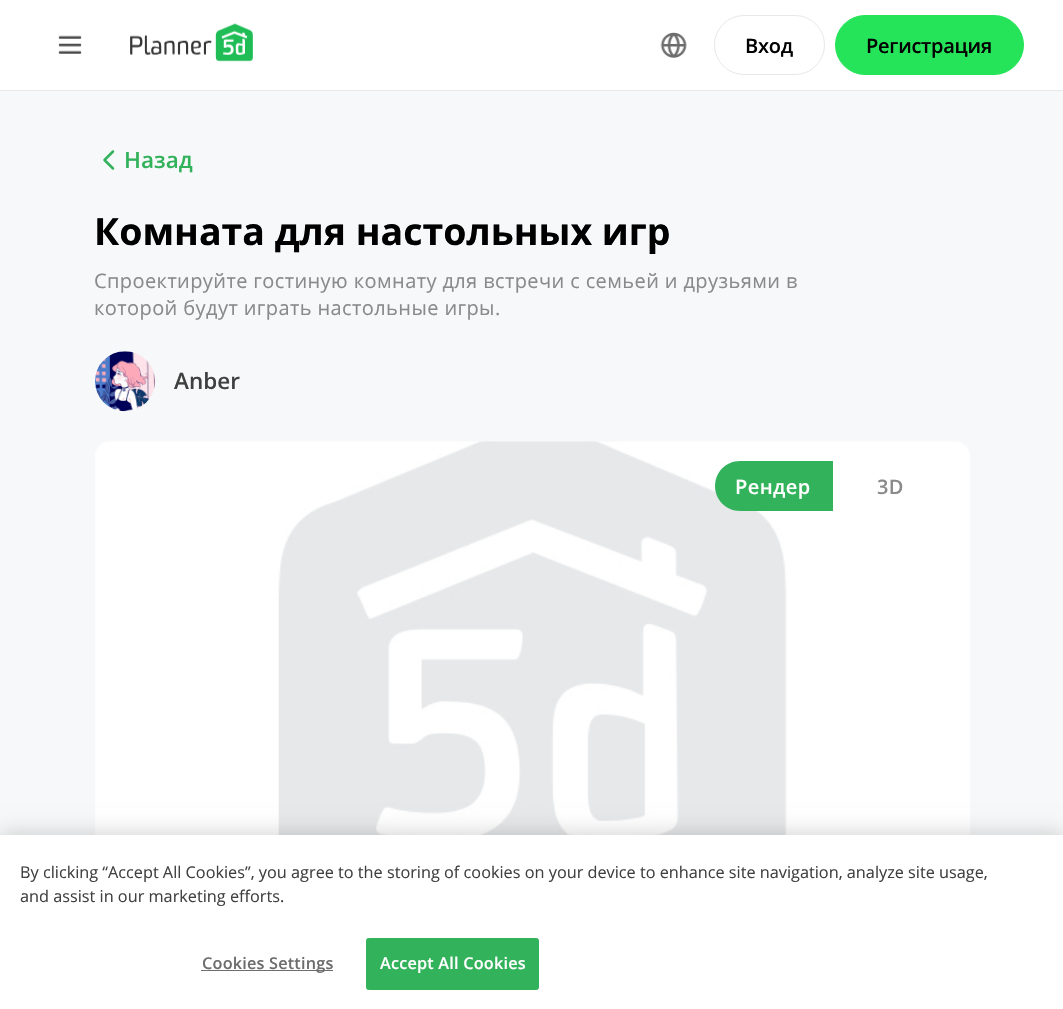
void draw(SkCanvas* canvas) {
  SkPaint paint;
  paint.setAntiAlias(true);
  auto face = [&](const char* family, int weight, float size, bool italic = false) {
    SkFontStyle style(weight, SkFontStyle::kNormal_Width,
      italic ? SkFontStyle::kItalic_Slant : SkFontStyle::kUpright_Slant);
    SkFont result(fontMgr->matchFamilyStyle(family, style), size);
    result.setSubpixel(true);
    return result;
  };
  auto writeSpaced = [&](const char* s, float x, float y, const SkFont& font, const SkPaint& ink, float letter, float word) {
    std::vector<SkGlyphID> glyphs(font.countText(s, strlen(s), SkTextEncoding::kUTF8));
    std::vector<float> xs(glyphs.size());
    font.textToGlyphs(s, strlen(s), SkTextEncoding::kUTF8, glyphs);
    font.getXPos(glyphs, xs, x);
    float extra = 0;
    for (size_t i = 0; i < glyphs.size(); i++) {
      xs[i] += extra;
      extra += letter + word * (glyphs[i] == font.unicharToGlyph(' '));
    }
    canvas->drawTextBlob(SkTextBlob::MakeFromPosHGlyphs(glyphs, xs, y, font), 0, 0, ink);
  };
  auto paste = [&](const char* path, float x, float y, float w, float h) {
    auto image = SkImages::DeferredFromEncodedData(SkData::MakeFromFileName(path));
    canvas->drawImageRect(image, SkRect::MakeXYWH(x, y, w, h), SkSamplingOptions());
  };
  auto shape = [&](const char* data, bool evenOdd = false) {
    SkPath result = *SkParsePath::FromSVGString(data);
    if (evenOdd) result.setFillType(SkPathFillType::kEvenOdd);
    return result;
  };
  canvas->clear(0xfff6f8f9);
  paint.setColor(0xffffffff);
  canvas->drawRect(SkRect::MakeXYWH(0, 0, 1063, 90), paint);
  paint.setColor(0xffe8e8e8);
  canvas->drawRect(SkRect::MakeXYWH(0, 90, 1063, 1), paint);
  paste("img/1.png", 58, 35, 24, 19);
  paste("img/2.png", 130, 23, 123, 39);
  paste("img/3.png", 660, 32, 27, 26);
  paint.setStroke(true);
  paint.setStrokeWidth(1);
  canvas->drawRoundRect(SkRect::MakeXYWH(714.5f, 15.5f, 110, 59), 29.5f, 29.5f, paint);
  paint.setStroke(false);
  paint.setColor(0xff25e459);
  canvas->drawRoundRect(SkRect::MakeXYWH(835.5f, 15.5f, 188, 59), 29.5f, 29.5f, paint);
  paint.setStroke(true);
  canvas->drawRoundRect(SkRect::MakeXYWH(835.5f, 15.5f, 188, 59), 29.5f, 29.5f, paint);
  paint.setStrokeWidth(2.5f);
  paint.setStrokeCap(SkPaint::kRound_Cap);
  paint.setStrokeJoin(SkPaint::kRound_Join);
  paint.setColor(0xff33b25c);
  canvas->drawPath(shape("M113 168.5L104.5 160L113 151.5"), paint);
  paste("img/4.png", 95, 351, 60, 61);
  paste("img/5.png", 95, 441, 875, 394);
  paint.setStroke(false);
  canvas->drawPath(shape("M740 461H833V511H740C726 511 715 500 715 486C715 472 726 461 740 461Z"), paint);
  paint.setColor(0x33000000);
  paint.setMaskFilter(SkMaskFilter::MakeBlur(kNormal_SkBlurStyle, 11));
  canvas->drawRect(SkRect::MakeXYWH(0, 835, 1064, 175), paint);
  paint.setMaskFilter(nullptr);
  paint.setColor(0xffffffff);
  canvas->drawRect(SkRect::MakeXYWH(0, 835, 1063, 174), paint);
  paint.setColor(0xff6d6d6d);
  canvas->drawRect(SkRect::MakeXYWH(201, 970, 132, 1), paint);
  paint.setColor(0xff33b25c);
  canvas->drawRoundRect(SkRect::MakeXYWH(366.5f, 938.5f, 172, 51), 2, 2, paint);
  paint.setStroke(true);
  paint.setStrokeWidth(1);
  paint.setStrokeCap(SkPaint::kButt_Cap);
  paint.setStrokeJoin(SkPaint::kMiter_Join);
  canvas->drawRoundRect(SkRect::MakeXYWH(366.5f, 938.5f, 172, 51), 2, 2, paint);
  auto f0 = face("Open Sans", 600, 20);
  paint.setStroke(false);
  paint.setColor(0xff000000);
  writeSpaced("Вход", 745, 53, f0, paint, -0.25f, 0);
  writeSpaced("Регистрация", 866, 53, f0, paint, -0.25f, 0);
  auto f1 = face("Open Sans", 600, 22.5f);
  paint.setColor(0xff33b25c);
  canvas->drawString("Назад", 124, 168, f1, paint);
  auto f2 = face("Open Sans", 700, 37.5f);
  paint.setColor(0xff000000);
  canvas->drawString("Комната для настольных игр", 94, 245, f2, paint);
  auto f3 = face("Open Sans", 400, 20);
  paint.setColor(0xff8a8a8a);
  writeSpaced("Спроектируйте гостиную комнату для встречи с семьей и друзьями в", 94, 288, f3, paint, 0.4f, 0);
  writeSpaced("которой будут играть настольные игры.", 94, 315, f3, paint, 0.4f, 0);
  paint.setColor(0xff404040);
  canvas->drawString("Anber", 174, 389, f1, paint);
  paint.setColor(0xffffffff);
  writeSpaced("Рендер", 735, 494, f0, paint, 0.4f, 0);
  paint.setColor(0xff8a8a8a);
  writeSpaced("3D", 877, 494, f0, paint, 0.4f, 0);
  auto f4 = face("Open Sans", 400, 16.25f);
  paint.setColor(0xff404040);
  canvas->drawString("By clicking “Accept All Cookies”, you agree to the storing of cookies on your device to enhance site navigation, analyze site usage,", 20, 878, f4, paint);
  canvas->drawString("and assist in our marketing efforts.", 20, 902, f4, paint);
  auto f5 = face("Open Sans", 600, 16.25f);
  paint.setColor(0xff6d6d6d);
  writeSpaced("Cookies Settings", 202, 969, f5, paint, 0.2f, 0);
  paint.setColor(0xffffffff);
  writeSpaced("Accept All Cookies", 380, 969, f5, paint, 0.2f, 0);
}
